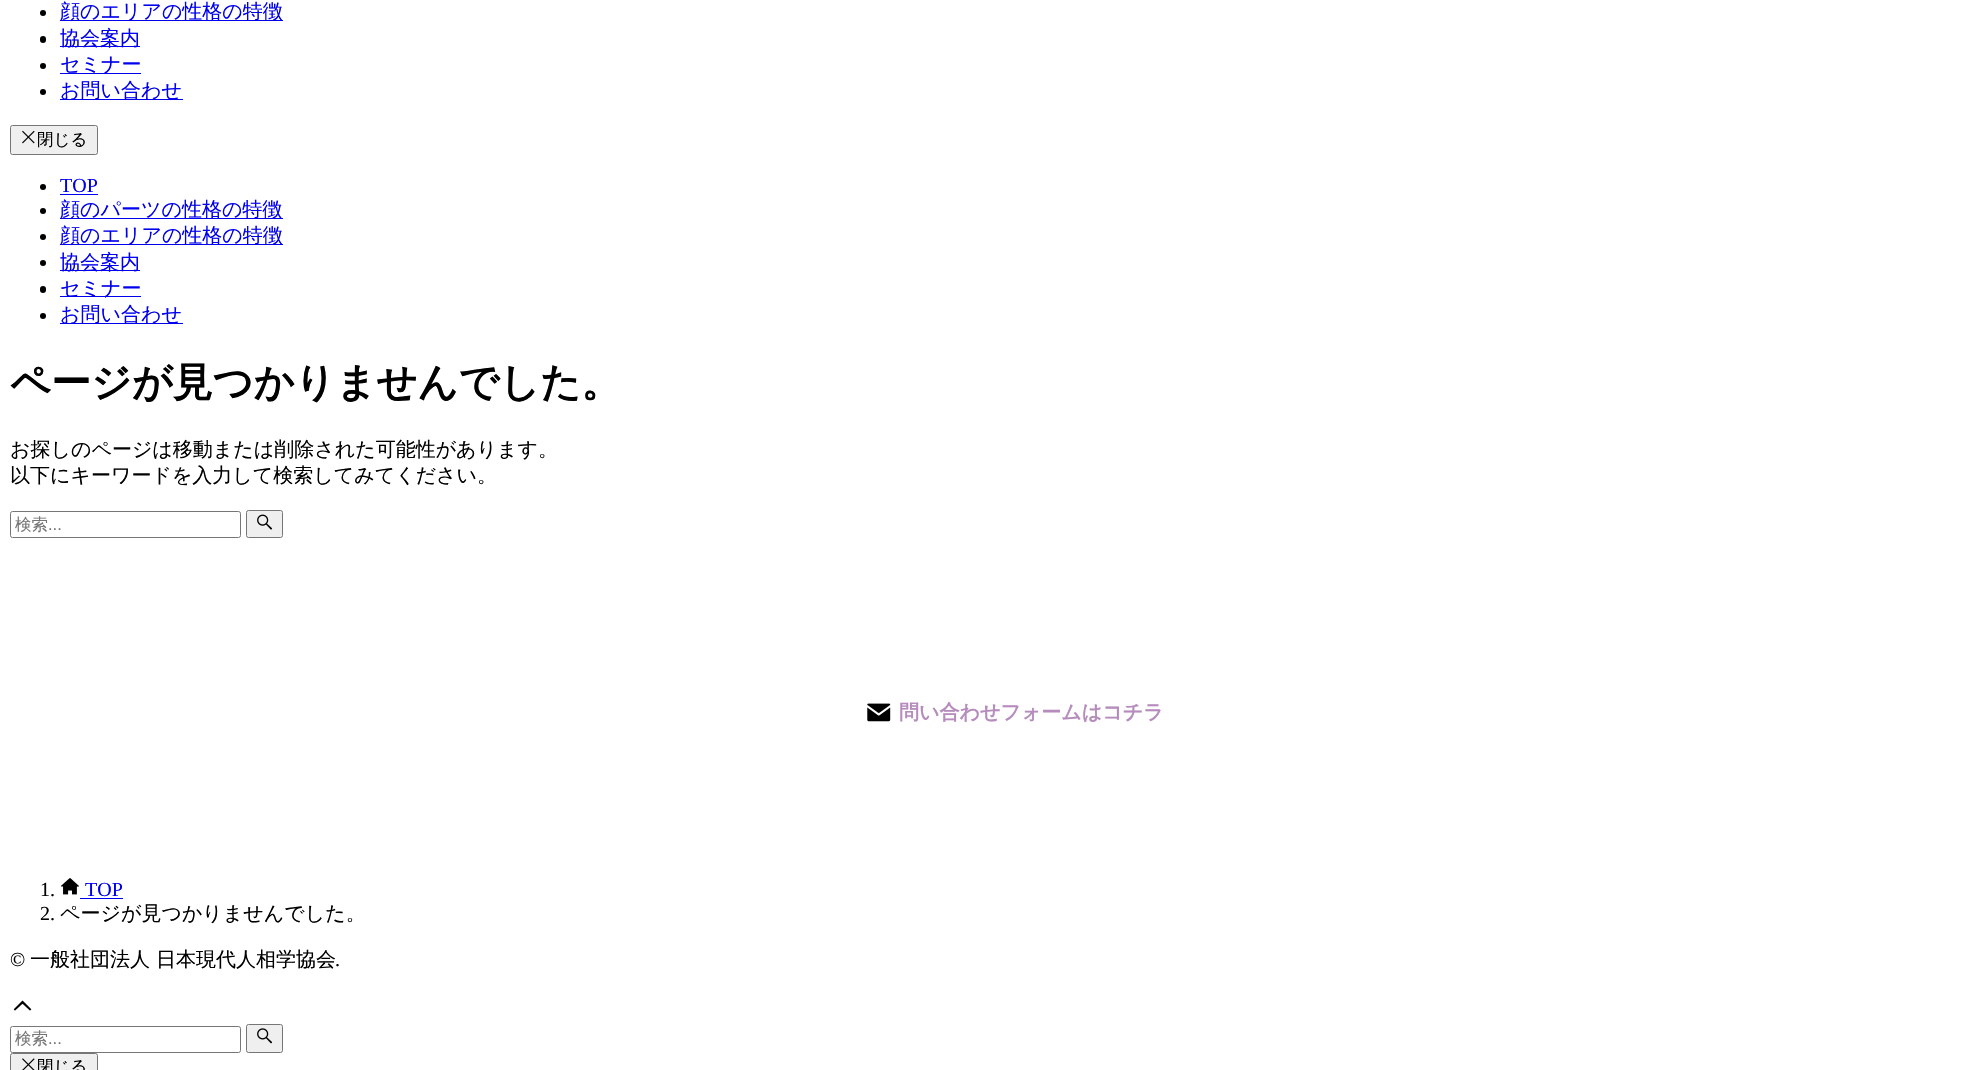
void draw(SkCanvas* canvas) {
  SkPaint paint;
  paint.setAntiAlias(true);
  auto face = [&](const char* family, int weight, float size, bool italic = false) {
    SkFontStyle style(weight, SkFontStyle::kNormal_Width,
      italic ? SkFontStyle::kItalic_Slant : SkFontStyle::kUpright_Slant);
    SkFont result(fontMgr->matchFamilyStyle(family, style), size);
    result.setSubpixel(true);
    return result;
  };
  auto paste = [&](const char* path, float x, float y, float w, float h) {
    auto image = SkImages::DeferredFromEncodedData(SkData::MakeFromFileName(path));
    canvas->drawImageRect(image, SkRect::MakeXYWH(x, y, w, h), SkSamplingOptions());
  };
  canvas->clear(0xffffffff);
  paint.setColor(0xff000000);
  canvas->drawCircle(43, 13, 3, paint);
  paint.setColor(0xff0000ee);
  canvas->drawRect(SkRect::MakeXYWH(60, 20, 223, 1), paint);
  paint.setColor(0xff000000);
  canvas->drawRoundRect(SkRect::MakeXYWH(40, 36, 6, 7), 3, 3, paint);
  paint.setColor(0xff0000ee);
  canvas->drawRect(SkRect::MakeXYWH(60, 46, 80, 1), paint);
  paint.setColor(0xff000000);
  canvas->drawCircle(43, 66, 3, paint);
  paint.setColor(0xff0000ee);
  canvas->drawRect(SkRect::MakeXYWH(60, 73, 81, 1), paint);
  paint.setColor(0xff000000);
  canvas->drawCircle(43, 92, 3, paint);
  paint.setColor(0xff0000ee);
  canvas->drawRect(SkRect::MakeXYWH(60, 99, 123, 1), paint);
  paint.setColor(0xffefefef);
  canvas->drawRoundRect(SkRect::MakeXYWH(10.5f, 125.5f, 87, 29), 2, 2, paint);
  paint.setStroke(true);
  paint.setStrokeWidth(1);
  paint.setColor(0xff767676);
  canvas->drawRoundRect(SkRect::MakeXYWH(10.5f, 125.5f, 87, 29), 2, 2, paint);
  paste("img/1.png", 22, 130, 13, 14);
  paint.setStroke(false);
  paint.setColor(0xff000000);
  canvas->drawCircle(43, 187, 3, paint);
  paint.setColor(0xff0000ee);
  canvas->drawRect(SkRect::MakeXYWH(60, 194, 38, 1), paint);
  paint.setColor(0xff000000);
  canvas->drawCircle(43, 211, 3, paint);
  paint.setColor(0xff0000ee);
  canvas->drawRect(SkRect::MakeXYWH(60, 218, 223, 1), paint);
  paint.setColor(0xff000000);
  canvas->drawCircle(43, 237, 3, paint);
  paint.setColor(0xff0000ee);
  canvas->drawRect(SkRect::MakeXYWH(60, 244, 223, 1), paint);
  paint.setColor(0xff000000);
  canvas->drawCircle(43, 263, 3, paint);
  paint.setColor(0xff0000ee);
  canvas->drawRect(SkRect::MakeXYWH(60, 270, 80, 1), paint);
  paint.setColor(0xff000000);
  canvas->drawRoundRect(SkRect::MakeXYWH(40, 286, 6, 7), 3, 3, paint);
  paint.setColor(0xff0000ee);
  canvas->drawRect(SkRect::MakeXYWH(60, 296, 81, 1), paint);
  paint.setColor(0xff000000);
  canvas->drawCircle(43, 316, 3, paint);
  paint.setColor(0xff0000ee);
  canvas->drawRect(SkRect::MakeXYWH(60, 323, 123, 1), paint);
  paint.setStroke(true);
  paint.setColor(0xff767676);
  canvas->drawRoundRect(SkRect::MakeXYWH(10.5f, 511.5f, 230, 26), 2, 2, paint);
  paint.setStroke(false);
  paint.setColor(0xffefefef);
  canvas->drawRoundRect(SkRect::MakeXYWH(246.5f, 510.5f, 36, 27), 2, 2, paint);
  paint.setStroke(true);
  paint.setColor(0xff767676);
  canvas->drawRoundRect(SkRect::MakeXYWH(246.5f, 510.5f, 36, 27), 2, 2, paint);
  paste("img/2.png", 257, 514, 16, 16);
  paste("img/3.png", 867, 703, 24, 19);
  paste("img/4.png", 61, 878, 18, 17);
  paint.setStroke(false);
  paint.setColor(0xff0000ee);
  canvas->drawRect(SkRect::MakeXYWH(80, 898, 43, 1), paint);
  paste("img/5.png", 13, 1000, 19, 11);
  paint.setStroke(true);
  paint.setColor(0xff767676);
  canvas->drawRoundRect(SkRect::MakeXYWH(10.5f, 1026.5f, 230, 26), 2, 2, paint);
  paint.setStroke(false);
  paint.setColor(0xffefefef);
  canvas->drawRoundRect(SkRect::MakeXYWH(246.5f, 1024.5f, 36, 28), 2, 2, paint);
  paint.setStroke(true);
  paint.setColor(0xff767676);
  canvas->drawRoundRect(SkRect::MakeXYWH(246.5f, 1024.5f, 36, 28), 2, 2, paint);
  paste("img/6.png", 257, 1028, 16, 16);
  paint.setStroke(false);
  paint.setColor(0xffefefef);
  canvas->drawRoundRect(SkRect::MakeXYWH(10.5f, 1053.5f, 87, 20), 2, 2, paint);
  paint.setStroke(true);
  paint.setColor(0xff767676);
  canvas->drawRoundRect(SkRect::MakeXYWH(10.5f, 1053.5f, 87, 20), 2, 2, paint);
  paste("img/7.png", 22, 1058, 13, 12);
  auto f0 = face("WenQuanYi Zen Hei", 500, 20);
  paint.setStroke(false);
  paint.setColor(0xff0000ee);
  {
    const struct { const char* s; float x, y; } items[] = {
      {"顔のエリアの性格の特徴", 60, 18},
      {"協会案内", 60, 45},
      {"セミナー", 60, 71},
      {"お問い合わせ", 60, 97},
    };
    for (auto [s, x, y] : items) {
      canvas->drawString(s, x, y, f0, paint);
    }
  }
  auto f1 = face("WenQuanYi Zen Hei", 500, 16.5f);
  paint.setColor(0xff000000);
  canvas->drawString("閉じる", 37, 145, f1, paint);
  auto f2 = face("Liberation Serif", 400, 20);
  paint.setColor(0xff0000ee);
  canvas->drawString("TOP", 60, 192, f2, paint);
  {
    const struct { const char* s; float x, y; } items[] = {
      {"顔のパーツの性格の特徴", 60, 216},
      {"顔のエリアの性格の特徴", 60, 242},
      {"協会案内", 60, 269},
      {"セミナー", 60, 295},
      {"お問い合わせ", 60, 321},
    };
    for (auto [s, x, y] : items) {
      canvas->drawString(s, x, y, f0, paint);
    }
  }
  auto f3 = face("WenQuanYi Zen Hei", 700, 40);
  paint.setColor(0xff000000);
  canvas->drawString("ページが見つかりませんでした。", 10, 396, f3, paint);
  canvas->drawString("お探しのページは移動または削除された可能性があります。", 10, 456, f0, paint);
  canvas->drawString("以下にキーワードを入力して検索してみてください。", 10, 482, f0, paint);
  paint.setColor(0xff757575);
  canvas->drawString("検索", 15, 530, f1, paint);
  auto f4 = face("Liberation Sans", 400, 16.5f);
  canvas->drawString("...", 48, 530, f4, paint);
  auto f5 = face("WenQuanYi Zen Hei", 700, 20);
  paint.setColor(0xffb68cbd);
  canvas->drawString("問い合わせフォームはコチラ", 899, 719, f5, paint);
  paint.setColor(0xff000000);
  canvas->drawString("1.", 40, 896, f2, paint);
  paint.setColor(0xff0000ee);
  canvas->drawString("TOP", 85, 896, f2, paint);
  paint.setColor(0xff000000);
  canvas->drawString("2.", 40, 920, f2, paint);
  canvas->drawString("ページが見つかりませんでした。", 60, 920, f0, paint);
  canvas->drawString("©", 10, 966, f2, paint);
  canvas->drawString("一般社団法人 日本現代人相学協会", 30, 966, f0, paint);
  canvas->drawString(".", 335, 966, f2, paint);
  paint.setColor(0xff757575);
  canvas->drawString("検索", 15, 1044, f1, paint);
  canvas->drawString("...", 48, 1044, f4, paint);
  paint.setColor(0xff000000);
  canvas->drawString("閉じる", 37, 1072, f1, paint);
}
